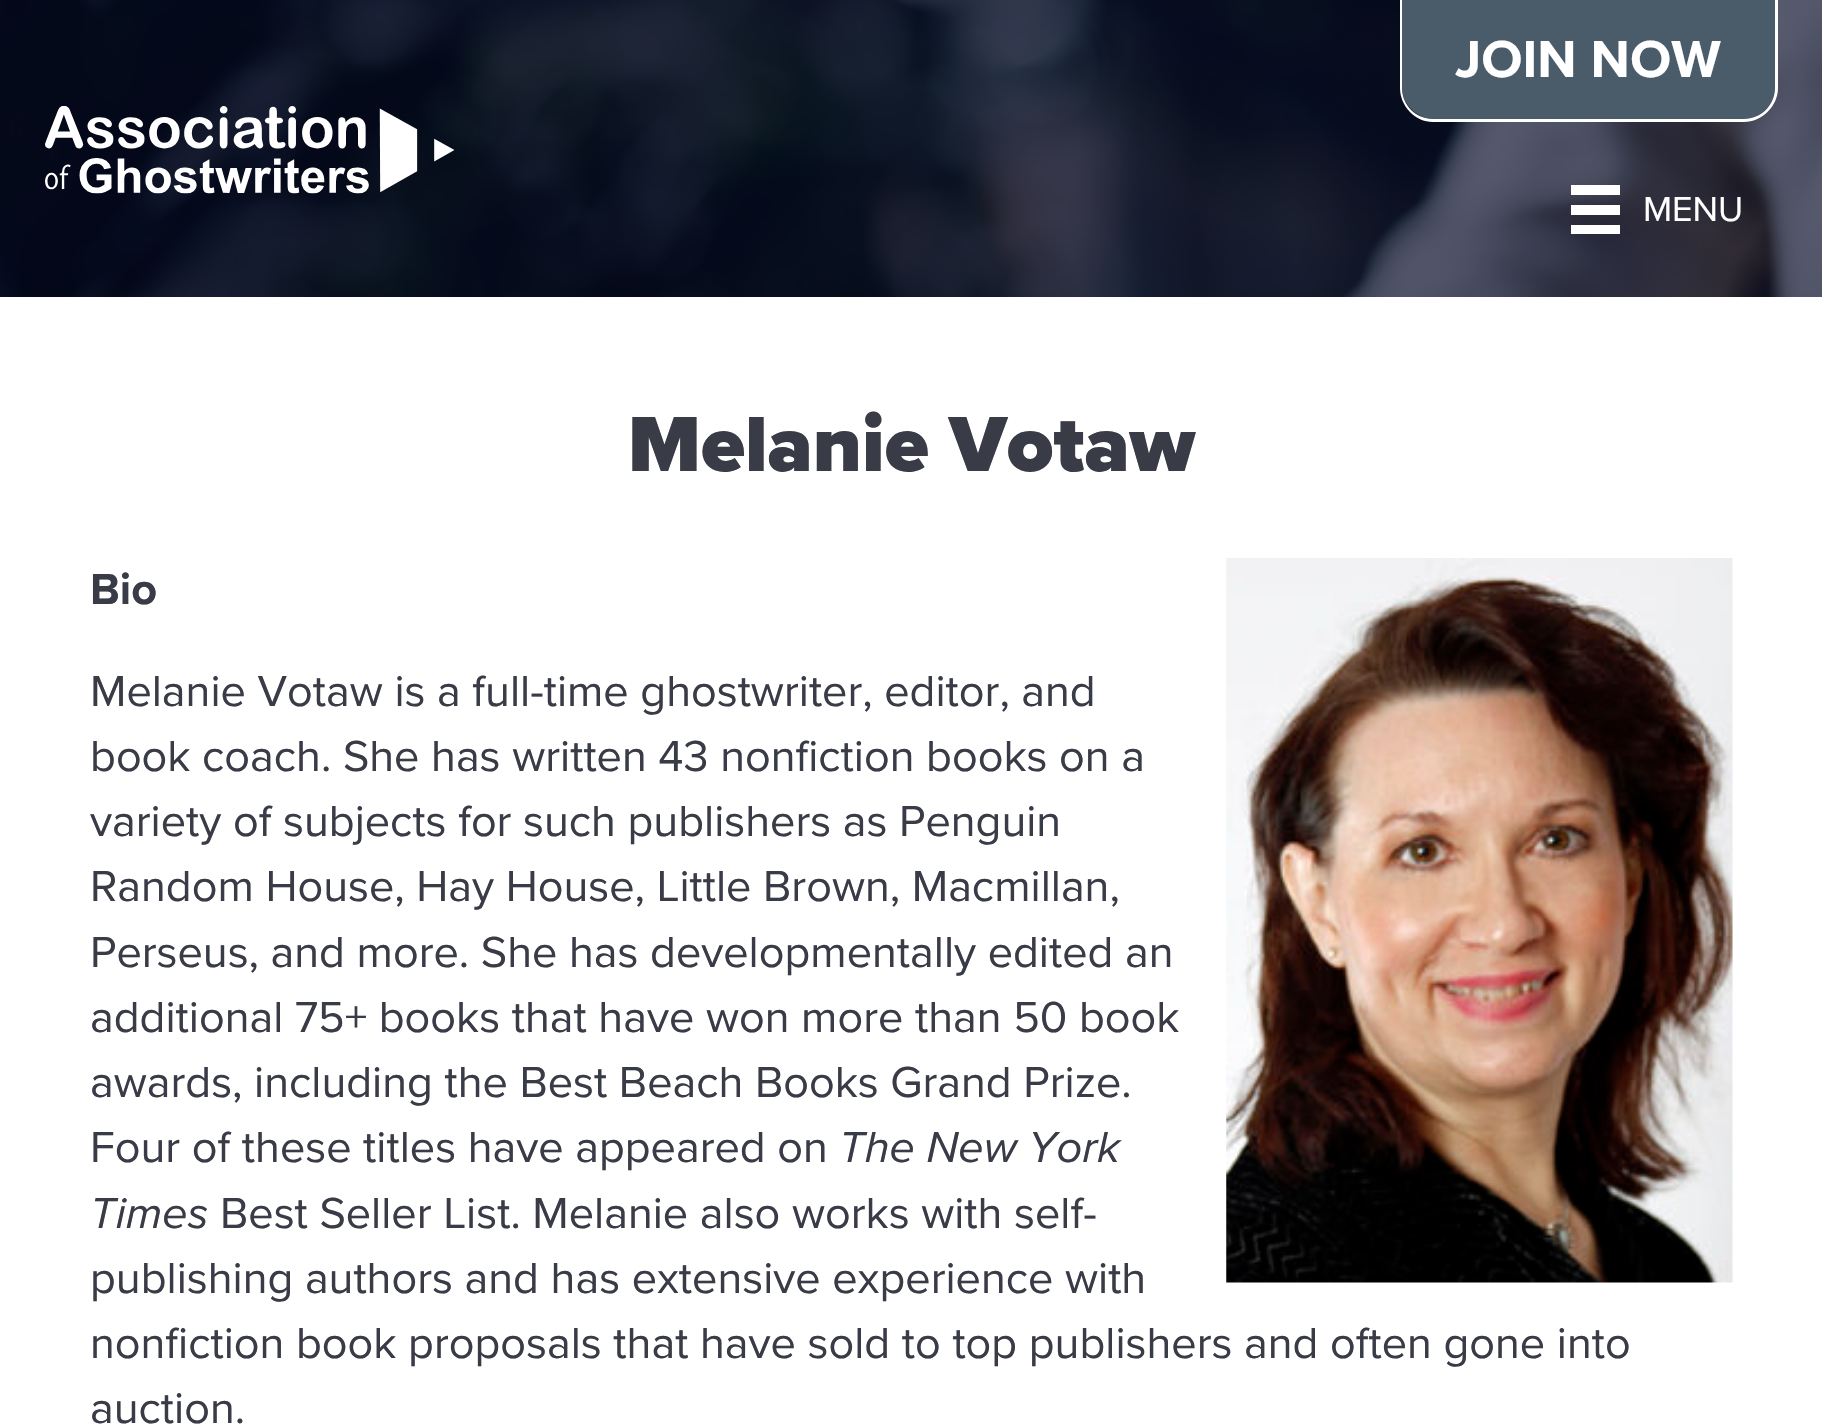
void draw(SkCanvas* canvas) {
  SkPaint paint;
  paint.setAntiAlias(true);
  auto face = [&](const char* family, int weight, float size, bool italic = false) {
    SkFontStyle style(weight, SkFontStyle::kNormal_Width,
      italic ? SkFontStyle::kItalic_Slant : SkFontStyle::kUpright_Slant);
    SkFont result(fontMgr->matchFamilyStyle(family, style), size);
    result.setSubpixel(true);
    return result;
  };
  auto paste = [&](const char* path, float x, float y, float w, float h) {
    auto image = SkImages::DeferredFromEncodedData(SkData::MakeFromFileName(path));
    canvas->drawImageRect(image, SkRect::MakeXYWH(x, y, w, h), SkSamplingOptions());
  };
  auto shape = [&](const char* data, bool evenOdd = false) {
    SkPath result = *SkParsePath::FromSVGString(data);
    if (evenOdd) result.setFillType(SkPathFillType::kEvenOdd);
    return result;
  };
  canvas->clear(0xffffffff);
  paste("img/1.png", 0, 0, 1822, 297);
  paste("img/2.png", 45, 106, 410, 88);
  paint.setColor(0xff4a5b69);
  canvas->drawPath(shape("M1402 0H1775V87C1775 104.5 1760.5 119 1743 119H1434C1416.5 119 1402 104.5 1402 87Z"), paint);
  paint.setColor(0xffffffff);
  canvas->drawPath(shape("M1400 0H1778V88C1778 106 1762 122 1744 122H1433C1415 122 1400 106 1400 88ZM1402 0H1775V88C1775 105 1761 119 1744 119H1433C1416 119 1402 105 1402 88Z", true), paint);
  {
    const struct { float x, y, w, h; SkColor color; } items[] = {
      {1571, 185, 49, 10, 0xffffffff},
      {1571, 205, 49, 10, 0xffffffff},
      {1571, 225, 49, 9, 0xffffffff},
    };
    for (auto [x, y, w, h, color] : items) {
      paint.setColor(color);
      canvas->drawRect(SkRect::MakeXYWH(x, y, w, h), paint);
    }
  }
  paste("img/3.png", 1226, 558, 507, 725);
  auto f0 = face("Proxima Nova", 700, 54);
  canvas->drawString("JOIN NOW", 1455, 77, f0, paint);
  auto f1 = face("Proxima Nova", 400, 36);
  canvas->drawString("MENU", 1643, 221, f1, paint);
  auto f2 = face("Proxima Nova", 900, 81);
  paint.setColor(0xff393b46);
  canvas->drawString("Melanie Votaw", 628, 471, f2, paint);
  auto f3 = face("Proxima Nova", 700, 45);
  canvas->drawString("Bio", 90, 604, f3, paint);
  auto f4 = face("Proxima Nova", 400, 45);
  {
    const struct { const char* s; float x, y; } items[] = {
      {"Melanie Votaw is a full-time ghostwriter, editor, and", 90, 706},
      {"book coach. She has written 43 nonfiction books on a", 90, 771},
      {"variety of subjects for such publishers as Penguin", 90, 836},
      {"Random House, Hay House, Little Brown, Macmillan,", 90, 901},
      {"Perseus, and more. She has developmentally edited an", 90, 967},
      {"additional 75+ books that have won more than 50 book", 90, 1032},
      {"awards, including the Best Beach Books Grand Prize.", 90, 1097},
      {"Four of these titles have appeared on", 90, 1162},
    };
    for (auto [s, x, y] : items) {
      canvas->drawString(s, x, y, f4, paint);
    }
  }
  auto f5 = face("Proxima Nova", 400, 45, true);
  canvas->drawString("The New York", 839, 1162, f5, paint);
  canvas->drawString("Times", 90, 1228, f5, paint);
  {
    const struct { const char* s; float x, y; } items[] = {
      {"Best Seller List. Melanie also works with self-", 220, 1228},
      {"publishing authors and has extensive experience with", 90, 1293},
      {"nonfiction book proposals that have sold to top publishers and often gone into", 90, 1358},
      {"auction.", 90, 1423},
    };
    for (auto [s, x, y] : items) {
      canvas->drawString(s, x, y, f4, paint);
    }
  }
}
